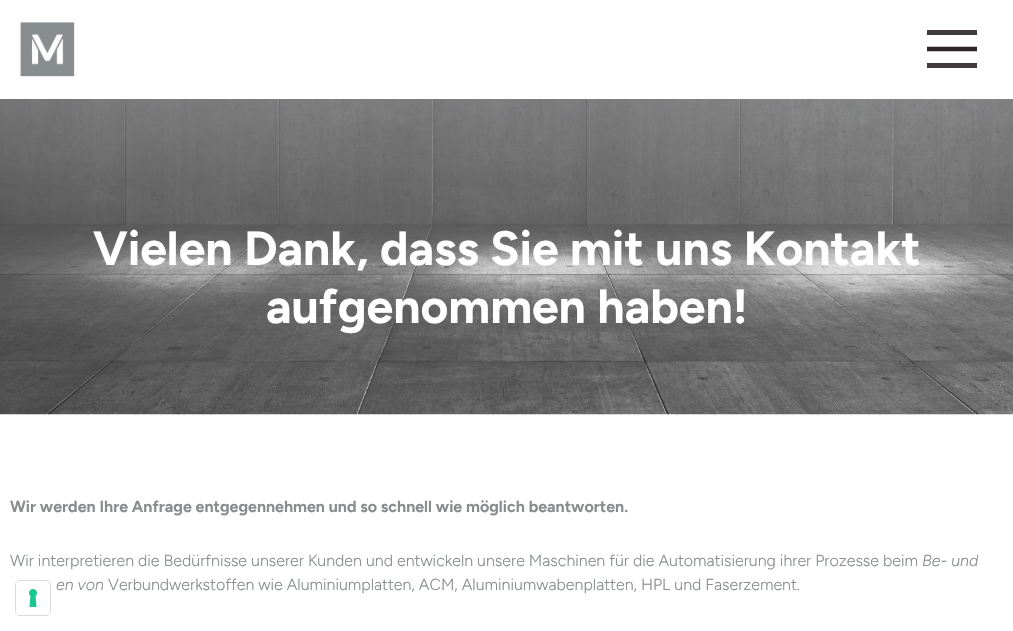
void draw(SkCanvas* canvas) {
  SkPaint paint;
  paint.setAntiAlias(true);
  auto face = [&](const char* family, int weight, float size, bool italic = false) {
    SkFontStyle style(weight, SkFontStyle::kNormal_Width,
      italic ? SkFontStyle::kItalic_Slant : SkFontStyle::kUpright_Slant);
    SkFont result(fontMgr->matchFamilyStyle(family, style), size);
    result.setSubpixel(true);
    return result;
  };
  auto paste = [&](const char* path, float x, float y, float w, float h) {
    auto image = SkImages::DeferredFromEncodedData(SkData::MakeFromFileName(path));
    canvas->drawImageRect(image, SkRect::MakeXYWH(x, y, w, h), SkSamplingOptions());
  };
  auto shape = [&](const char* data, bool evenOdd = false) {
    SkPath result = *SkParsePath::FromSVGString(data);
    if (evenOdd) result.setFillType(SkPathFillType::kEvenOdd);
    return result;
  };
  canvas->clear(0xffffffff);
  paste("img/1.png", 0, 99, 1013, 316);
  paste("img/2.png", 20, 22, 55, 55);
  paint.setColor(0xff423b3d);
  canvas->drawRect(SkRect::MakeXYWH(927, 30, 50, 5), paint);
  paint.setStroke(true);
  paint.setStrokeWidth(4.5f);
  paint.setColor(0xff2d2527);
  canvas->drawPath(shape("M927 49H977"), paint);
  paint.setStroke(false);
  paint.setColor(0xff423b3d);
  canvas->drawRect(SkRect::MakeXYWH(927, 63, 50, 5), paint);
  paint.setStroke(true);
  paint.setStrokeWidth(1);
  paint.setColor(0x26000000);
  canvas->drawRoundRect(SkRect::MakeXYWH(15.5f, 580.5f, 35, 35), 4.5f, 4.5f, paint);
  paint.setStroke(false);
  paint.setColor(0xffffffff);
  canvas->drawRoundRect(SkRect::MakeXYWH(16, 581, 34, 34), 4, 4, paint);
  paste("img/3.png", 29, 589, 8, 18);
  auto f0 = face("Figtree", 700, 48);
  canvas->drawString("Vielen Dank, dass Sie mit uns Kontakt", 93, 265, f0, paint);
  canvas->drawString("aufgenommen haben!", 266, 323, f0, paint);
  auto f1 = face("Figtree", 700, 16);
  paint.setColor(0xff898d90);
  canvas->drawString("Wir werden Ihre Anfrage entgegennehmen und so schnell wie möglich beantworten.", 10, 512, f1, paint);
  auto f2 = face("Figtree", 300, 16);
  canvas->drawString("Wir interpretieren die Bedürfnisse unserer Kunden und entwickeln unsere Maschinen für die Automatisierung ihrer Prozesse beim", 10, 566, f2, paint);
  auto f3 = face("Figtree", 300, 16, true);
  canvas->drawString("Be- und", 922, 566, f3, paint);
  canvas->drawString("en von", 56, 590, f3, paint);
  canvas->drawString("Verbundwerkstoffen wie Aluminiumplatten, ACM, Aluminiumwabenplatten, HPL und Faserzement.", 108, 590, f2, paint);
}
